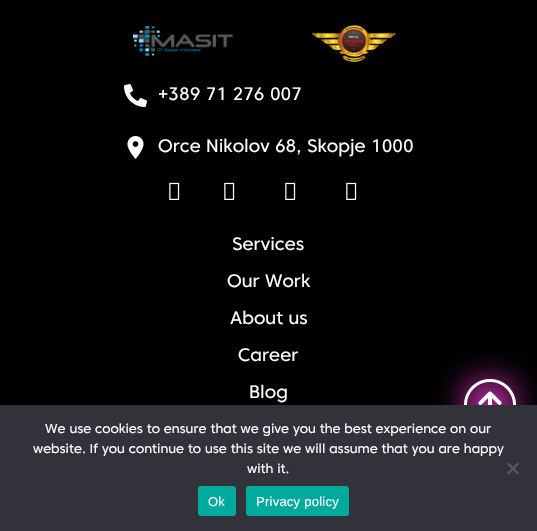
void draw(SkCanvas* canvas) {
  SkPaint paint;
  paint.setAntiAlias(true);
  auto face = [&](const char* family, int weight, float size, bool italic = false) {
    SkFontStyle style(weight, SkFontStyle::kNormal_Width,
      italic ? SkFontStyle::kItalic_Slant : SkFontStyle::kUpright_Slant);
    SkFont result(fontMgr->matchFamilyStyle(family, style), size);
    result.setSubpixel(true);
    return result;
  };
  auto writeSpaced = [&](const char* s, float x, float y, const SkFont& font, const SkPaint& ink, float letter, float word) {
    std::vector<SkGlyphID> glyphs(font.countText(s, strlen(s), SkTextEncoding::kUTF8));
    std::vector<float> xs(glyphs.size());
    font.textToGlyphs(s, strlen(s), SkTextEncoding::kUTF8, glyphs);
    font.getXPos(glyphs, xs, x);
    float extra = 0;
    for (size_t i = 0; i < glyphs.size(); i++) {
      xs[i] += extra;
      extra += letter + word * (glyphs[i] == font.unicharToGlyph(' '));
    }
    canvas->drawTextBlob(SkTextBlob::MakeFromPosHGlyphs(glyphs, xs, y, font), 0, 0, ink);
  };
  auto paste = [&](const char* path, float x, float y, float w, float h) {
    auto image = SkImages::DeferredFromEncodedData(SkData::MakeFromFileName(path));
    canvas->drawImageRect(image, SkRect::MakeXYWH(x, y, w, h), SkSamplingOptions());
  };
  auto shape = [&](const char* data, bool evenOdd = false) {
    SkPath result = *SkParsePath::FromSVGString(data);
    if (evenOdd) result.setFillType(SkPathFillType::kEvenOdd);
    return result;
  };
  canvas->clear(0xff000000);
  paste("img/1.png", 133, 26, 100, 30);
  paste("img/2.png", 312, 24, 84, 39);
  paste("img/3.png", 124, 84, 23, 23);
  paste("img/4.png", 127, 136, 17, 23);
  paste("img/5.png", 169, 182, 11, 18);
  paste("img/5.png", 224, 182, 11, 18);
  paste("img/5.png", 285, 182, 11, 18);
  paste("img/5.png", 346, 182, 11, 18);
  paint.setColor(0xffbe2ca8);
  paint.setMaskFilter(SkMaskFilter::MakeBlur(kNormal_SkBlurStyle, 15));
  canvas->drawRect(SkRect::MakeXYWH(466, 382, 47, 46), paint);
  paint.setMaskFilter(nullptr);
  paste("img/6.png", 464, 379, 52, 26);
  paint.setColor(0xff32323a);
  canvas->drawRect(SkRect::MakeXYWH(0, 405, 537, 126), paint);
  paint.setColor(0xff59595d);
  canvas->drawPath(shape("M517.5 462.5L519 464L508.5 474.5L507 473Z"), paint);
  canvas->drawPath(shape("M507 464L508.5 462.5L519 473L517.5 474.5Z"), paint);
  paint.setColor(0xff00a99d);
  canvas->drawRoundRect(SkRect::MakeXYWH(198, 486, 38, 30), 3, 3, paint);
  canvas->drawRoundRect(SkRect::MakeXYWH(246, 486, 103, 30), 3, 3, paint);
  auto f0 = face("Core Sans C", 400, 18);
  paint.setColor(0xffffffff);
  {
    const struct { const char* s; float x, y; } items[] = {
      {"+389 71 276 007", 158, 100},
      {"Orce Nikolov 68, Skopje 1000", 158, 152},
      {"Services", 232, 250},
      {"Our Work", 227, 287},
      {"About us", 230, 324},
      {"Career", 238, 361},
      {"Blog", 249, 398},
    };
    for (auto [s, x, y] : items) {
      canvas->drawString(s, x, y, f0, paint);
    }
  }
  auto f1 = face("Core Sans C", 400, 13);
  {
    const struct { const char* s; float x, y; } items[] = {
      {"We use cookies to ensure that we give you the best experience on our", 45, 433},
      {"website. If you continue to use this site we will assume that you are happy", 33, 453},
      {"with it.", 247, 473},
    };
    for (auto [s, x, y] : items) {
      canvas->drawString(s, x, y, f1, paint);
    }
  }
  auto f2 = face("Liberation Sans", 400, 13);
  writeSpaced("Ok", 208, 506, f2, paint, 0.25f, 0);
  writeSpaced("Privacy policy", 256, 506, f2, paint, 0.25f, 0);
}
